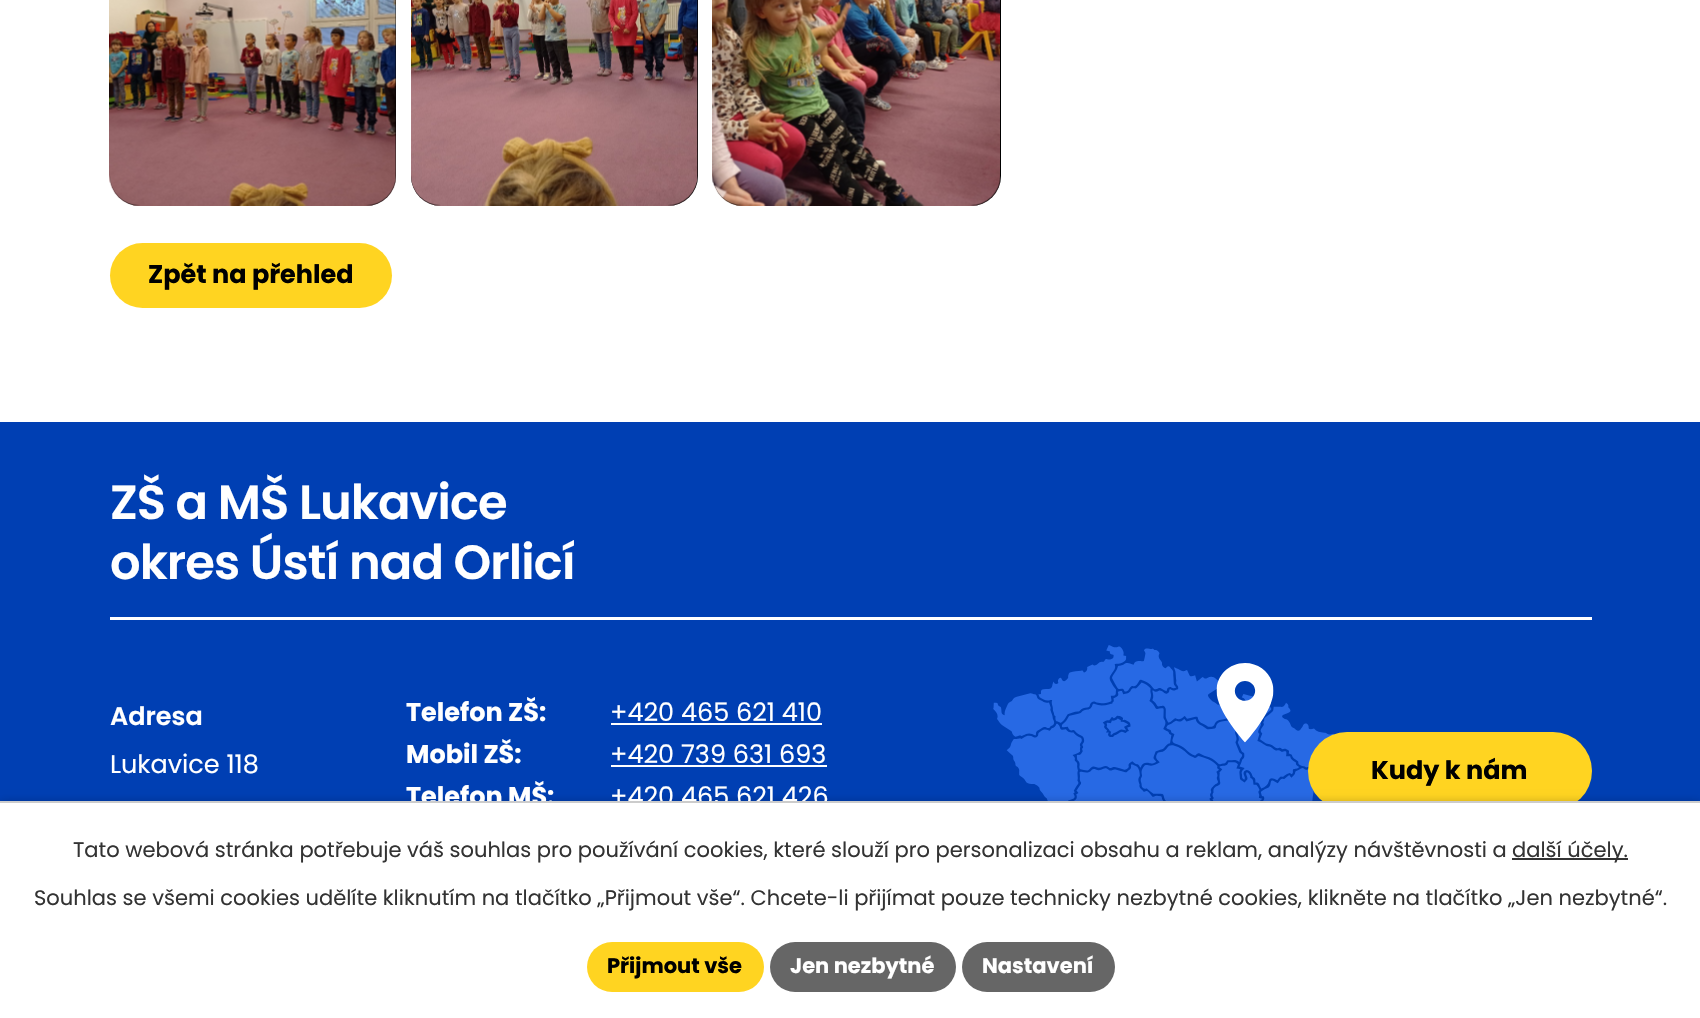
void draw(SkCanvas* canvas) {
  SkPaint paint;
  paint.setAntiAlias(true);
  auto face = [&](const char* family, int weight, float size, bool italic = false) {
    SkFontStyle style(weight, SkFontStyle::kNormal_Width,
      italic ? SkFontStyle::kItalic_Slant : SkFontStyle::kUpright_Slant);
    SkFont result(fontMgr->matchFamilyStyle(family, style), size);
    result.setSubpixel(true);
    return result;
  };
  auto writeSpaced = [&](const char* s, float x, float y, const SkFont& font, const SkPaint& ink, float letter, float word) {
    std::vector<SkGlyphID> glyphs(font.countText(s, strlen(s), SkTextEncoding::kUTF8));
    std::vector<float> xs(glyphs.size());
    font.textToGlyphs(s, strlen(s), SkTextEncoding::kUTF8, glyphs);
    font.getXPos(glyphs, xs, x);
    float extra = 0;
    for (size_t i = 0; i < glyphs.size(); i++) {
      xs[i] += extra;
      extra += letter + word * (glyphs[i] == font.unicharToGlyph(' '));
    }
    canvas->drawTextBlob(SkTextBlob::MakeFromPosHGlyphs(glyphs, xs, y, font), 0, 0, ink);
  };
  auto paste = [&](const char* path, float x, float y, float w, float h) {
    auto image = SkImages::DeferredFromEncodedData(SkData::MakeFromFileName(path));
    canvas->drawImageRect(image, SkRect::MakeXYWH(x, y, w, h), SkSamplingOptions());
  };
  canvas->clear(0xffffffff);
  paint.setColor(0xff000000);
  canvas->drawRoundRect(SkRect::MakeXYWH(110, -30, 286, 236), 30, 30, paint);
  paste("img/1.png", 109, 0, 287, 206);
  canvas->drawRoundRect(SkRect::MakeXYWH(411, -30, 287, 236), 30, 30, paint);
  paste("img/2.png", 411, 0, 287, 206);
  canvas->drawRoundRect(SkRect::MakeXYWH(713, -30, 288, 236), 30, 30, paint);
  paste("img/3.png", 712, 0, 288, 206);
  paint.setColor(0xffffd421);
  canvas->drawRoundRect(SkRect::MakeXYWH(110, 243, 282, 65), 32.5f, 32.5f, paint);
  {
    const struct { float x, y, w, h; SkColor color; } items[] = {
      {0, 422, 1700, 379, 0xff003fb3},
      {110, 617, 1482, 3, 0xffffffff},
      {611, 723, 211, 2, 0xffffffff},
      {611, 765, 216, 2, 0xffffffff},
    };
    for (auto [x, y, w, h, color] : items) {
      paint.setColor(color);
      canvas->drawRect(SkRect::MakeXYWH(x, y, w, h), paint);
    }
  }
  paste("img/4.png", 993, 645, 341, 156);
  paint.setColor(0xffffd421);
  canvas->drawRoundRect(SkRect::MakeXYWH(1308, 732, 284, 78), 39, 39, paint);
  paint.setColor(0x33000000);
  paint.setMaskFilter(SkMaskFilter::MakeBlur(kNormal_SkBlurStyle, 4));
  canvas->drawRect(SkRect::MakeXYWH(0, 801, 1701, 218), paint);
  paint.setMaskFilter(nullptr);
  paint.setColor(0xffffffff);
  canvas->drawRect(SkRect::MakeXYWH(0, 803, 1700, 215), paint);
  paint.setColor(0xff333333);
  canvas->drawRect(SkRect::MakeXYWH(1512, 858, 116, 2), paint);
  paint.setColor(0xffffd421);
  canvas->drawRoundRect(SkRect::MakeXYWH(587, 942, 177, 50), 25, 25, paint);
  paint.setColor(0xff666666);
  canvas->drawRoundRect(SkRect::MakeXYWH(770, 942, 186, 50), 25, 25, paint);
  canvas->drawRoundRect(SkRect::MakeXYWH(962, 942, 153, 50), 25, 25, paint);
  auto f0 = face("Poppins", 700, 25.5f);
  paint.setColor(0xff000000);
  canvas->drawString("Zpět na přehled", 148, 283, f0, paint);
  auto f1 = face("Poppins", 600, 48);
  paint.setColor(0xffffffff);
  writeSpaced("ZŠ a MŠ Lukavice", 110, 519, f1, paint, -0.9f, 0);
  writeSpaced("okres Ústí nad Orlicí", 110, 579, f1, paint, -0.9f, 0);
  auto f2 = face("Poppins", 600, 25.5f);
  canvas->drawString("Adresa", 110, 725, f2, paint);
  auto f3 = face("Poppins", 400, 25.5f);
  canvas->drawString("Lukavice 118", 110, 773, f3, paint);
  canvas->drawString("Telefon ZŠ:", 406, 721, f0, paint);
  canvas->drawString("+420 465 621 410", 610, 721, f3, paint);
  canvas->drawString("Mobil ZŠ:", 406, 763, f0, paint);
  canvas->drawString("+420 739 631 693", 610, 763, f3, paint);
  canvas->drawString("Telefon MŠ:", 406, 805, f0, paint);
  canvas->drawString("+420 465 621 426", 610, 805, f3, paint);
  paint.setColor(0xff000000);
  canvas->drawString("Kudy k nám", 1371, 779, f0, paint);
  paint.setColor(0xffcccccc);
  canvas->drawRect(SkRect::MakeXYWH(0, 801, 1700, 2), paint);
  auto f4 = face("Poppins", 400, 21);
  paint.setColor(0xff333333);
  {
    const struct { const char* s; float x, y; } items[] = {
      {"Tato webová stránka potřebuje váš souhlas pro používání cookies, které slouží pro personalizaci obsahu a reklam, analýzy návštěvnosti a", 73, 857},
      {"další účely.", 1512, 857},
      {"Souhlas se všemi cookies udělíte kliknutím na tlačítko „Přijmout vše“. Chcete-li přijímat pouze technicky nezbytné cookies, klikněte na tlačítko „Jen nezbytné“.", 34, 905},
    };
    for (auto [s, x, y] : items) {
      canvas->drawString(s, x, y, f4, paint);
    }
  }
  auto f5 = face("Poppins", 700, 21);
  paint.setColor(0xff000000);
  canvas->drawString("Přijmout vše", 607, 973, f5, paint);
  paint.setColor(0xffffffff);
  canvas->drawString("Jen nezbytné", 790, 973, f5, paint);
  canvas->drawString("Nastavení", 982, 973, f5, paint);
}
